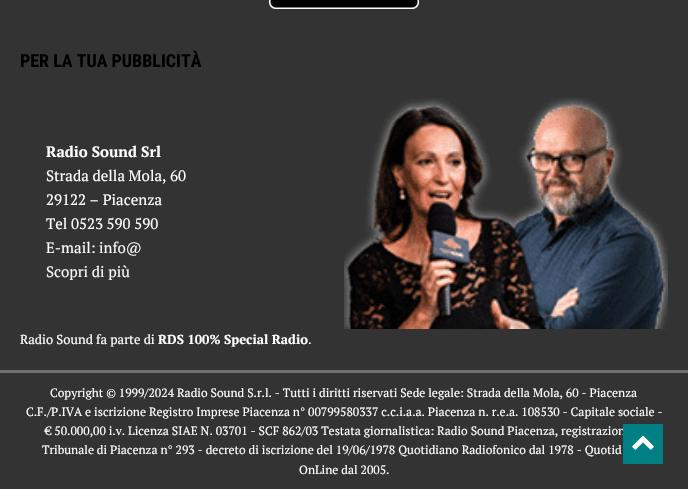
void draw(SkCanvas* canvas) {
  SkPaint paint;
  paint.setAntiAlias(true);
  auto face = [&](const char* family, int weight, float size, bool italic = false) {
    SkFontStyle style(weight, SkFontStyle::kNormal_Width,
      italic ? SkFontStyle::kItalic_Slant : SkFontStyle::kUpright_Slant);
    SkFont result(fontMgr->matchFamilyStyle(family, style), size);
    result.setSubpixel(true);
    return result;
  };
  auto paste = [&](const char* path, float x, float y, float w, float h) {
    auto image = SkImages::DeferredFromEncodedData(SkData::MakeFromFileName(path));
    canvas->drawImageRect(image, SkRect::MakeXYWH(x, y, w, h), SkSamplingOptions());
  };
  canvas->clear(0xff333333);
  paste("img/1.png", 269, 0, 150, 9);
  paste("img/2.png", 344, 97, 324, 232);
  paint.setColor(0xff707070);
  canvas->drawRect(SkRect::MakeXYWH(0, 370, 688, 3), paint);
  auto f0 = face("Roboto Condensed", 700, 18);
  paint.setColor(0xff000000);
  canvas->drawString("PER LA TUA PUBBLICITÀ", 20, 67, f0, paint);
  auto f1 = face("PT Serif", 700, 15);
  paint.setColor(0xffffffff);
  canvas->drawString("Radio Sound Srl", 46, 157, f1, paint);
  auto f2 = face("PT Serif", 400, 15);
  {
    const struct { const char* s; float x, y; } items[] = {
      {"Strada della Mola, 60", 46, 181},
      {"29122 – Piacenza", 46, 205},
      {"Tel 0523 590 590", 46, 229},
      {"E-mail:", 46, 253},
    };
    for (auto [s, x, y] : items) {
      canvas->drawString(s, x, y, f2, paint);
    }
  }
  paint.setColor(0xfff7f7f7);
  canvas->drawString("info@", 99, 253, f2, paint);
  canvas->drawString("Scopri di più", 46, 277, f2, paint);
  auto f3 = face("PT Serif", 400, 13);
  paint.setColor(0xffffffff);
  canvas->drawString("Radio Sound fa parte di", 20, 344, f3, paint);
  auto f4 = face("PT Serif", 700, 13);
  canvas->drawString("RDS 100% Special Radio", 158, 344, f4, paint);
  canvas->drawString(".", 308, 344, f3, paint);
  auto f5 = face("PT Serif", 400, 12);
  {
    const struct { const char* s; float x, y; } items[] = {
      {"Copyright © 1999/2024 Radio Sound S.r.l. - Tutti i diritti riservati Sede legale: Strada della Mola, 60 - Piacenza", 50, 397},
      {"C.F./P.IVA e iscrizione Registro Imprese Piacenza n° 00799580337 c.c.i.a.a. Piacenza n. r.e.a. 108530 - Capitale sociale -", 26, 416},
      {"€ 50.000,00 i.v. Licenza SIAE N. 03701 - SCF 862/03 Testata giornalistica: Radio Sound Piacenza, registrazion", 45, 435},
      {"Tribunale di Piacenza n° 293 - decreto di iscrizione del 19/06/1978 Quotidiano Radiofonico dal 1978 - Quotid", 42, 454},
      {"OnLine dal 2005.", 299, 474},
    };
    for (auto [s, x, y] : items) {
      canvas->drawString(s, x, y, f5, paint);
    }
  }
  paint.setColor(0xff008084);
  canvas->drawRect(SkRect::MakeXYWH(623, 424, 40, 40), paint);
  paste("img/3.png", 632, 435, 22, 15);
}
